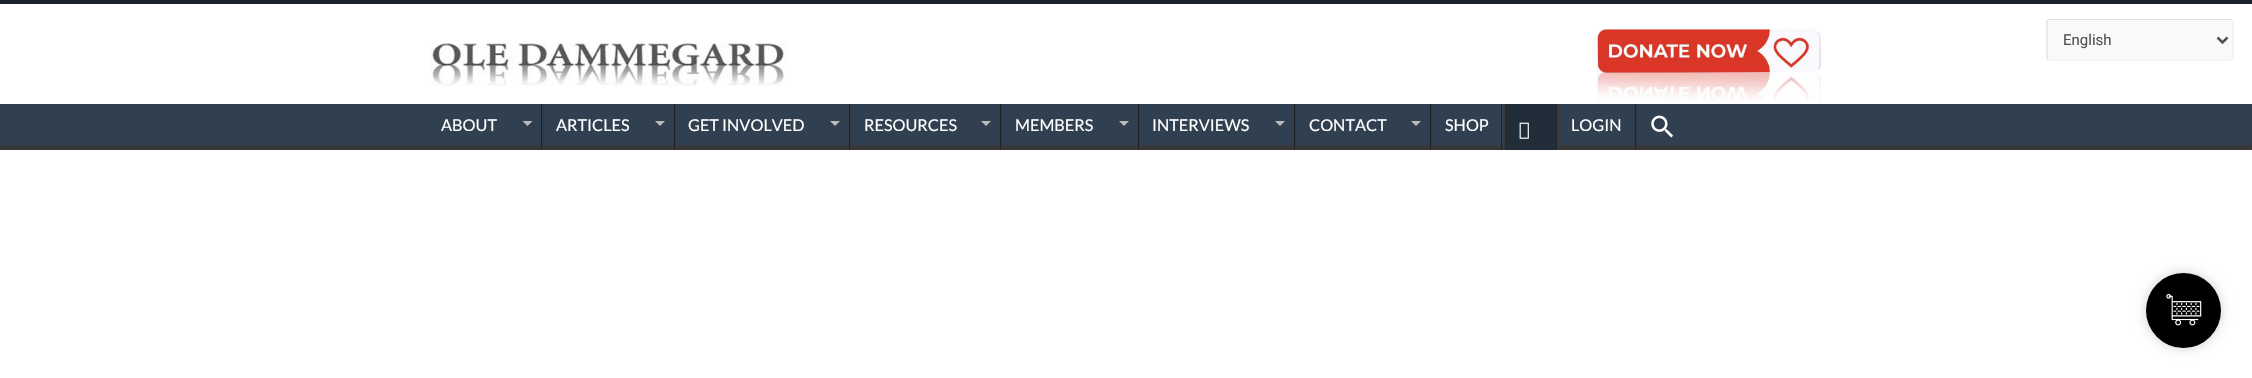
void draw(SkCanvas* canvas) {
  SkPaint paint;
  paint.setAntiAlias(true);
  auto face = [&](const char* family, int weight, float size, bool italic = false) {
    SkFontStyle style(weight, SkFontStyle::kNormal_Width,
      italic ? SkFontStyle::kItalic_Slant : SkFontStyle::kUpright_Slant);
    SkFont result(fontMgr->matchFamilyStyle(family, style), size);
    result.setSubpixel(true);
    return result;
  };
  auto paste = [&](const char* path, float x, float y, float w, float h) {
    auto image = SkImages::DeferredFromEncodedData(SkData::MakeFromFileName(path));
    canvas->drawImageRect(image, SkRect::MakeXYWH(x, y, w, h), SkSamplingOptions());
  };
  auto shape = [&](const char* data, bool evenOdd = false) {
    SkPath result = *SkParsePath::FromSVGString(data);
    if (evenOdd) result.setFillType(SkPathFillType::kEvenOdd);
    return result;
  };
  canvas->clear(0xffffffff);
  paint.setColor(0xfff9f9f9);
  canvas->drawRoundRect(SkRect::MakeXYWH(2046, 19, 188, 42), 4, 4, paint);
  paint.setStroke(true);
  paint.setStrokeWidth(1.2f);
  paint.setColor(0xfff1f1f1);
  canvas->drawPath(shape("M2232 20.5C2234 22 2233 27 2233 28.5V51.5C2233 54 2234.5 60.5 2230 60.5H2049L2048 59.5"), paint);
  paint.setColor(0xffdddddd);
  canvas->drawPath(shape("M2048 59.5C2046 58 2047 53 2047 51.5V28.5C2047 26 2045.5 19.5 2050 19.5H2231L2232 20.5"), paint);
  paint.setStrokeWidth(2.5f);
  paint.setColor(0xff515151);
  canvas->drawPath(shape("M2217.5 37.5L2222.5 42.5L2227.5 37.5"), paint);
  paint.setStroke(false);
  paint.setColor(0xff19232d);
  canvas->drawRect(SkRect::MakeXYWH(0, 0, 2252, 4), paint);
  paste("img/1.png", 430, 42, 357, 44);
  paste("img/2.png", 1596, 28, 225, 73);
  paint.setColor(0xff304050);
  canvas->drawRect(SkRect::MakeXYWH(0, 104, 2252, 41), paint);
  canvas->save();
  canvas->clipRect(SkRect::MakeXYWH(0, 104, 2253, 46));
  paint.setColor(0xff393939);
  canvas->drawPath(shape("M-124-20H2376V274H-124ZM-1 96H2251C2252 96 2252 97 2252 98V144C2252 144 2252 145 2251 145H-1C-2 145-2 144-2 144V98C-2 97-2 96-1 96Z", true), paint);
  canvas->restore();
  paint.setColor(0xffbbbbbb);
  canvas->drawPath(shape("M522.5 121H532.5L527.5 126Z"), paint);
  paint.setColor(0xff222222);
  canvas->drawRect(SkRect::MakeXYWH(541, 104, 1, 46), paint);
  paint.setColor(0xff383838);
  canvas->drawRect(SkRect::MakeXYWH(543, 104, 1, 46), paint);
  paint.setColor(0xffbbbbbb);
  canvas->drawPath(shape("M655 121H665L660 126Z"), paint);
  paint.setColor(0xff222222);
  canvas->drawRect(SkRect::MakeXYWH(674, 104, 1, 46), paint);
  paint.setColor(0xff383838);
  canvas->drawRect(SkRect::MakeXYWH(675, 104, 1, 46), paint);
  paint.setColor(0xffbbbbbb);
  canvas->drawPath(shape("M830 121H840L835 126Z"), paint);
  paint.setColor(0xff222222);
  canvas->drawRect(SkRect::MakeXYWH(849, 104, 1, 46), paint);
  paint.setColor(0xff383838);
  canvas->drawRect(SkRect::MakeXYWH(850, 104, 1, 46), paint);
  paint.setColor(0xffbbbbbb);
  canvas->drawPath(shape("M981 121H991L986 126Z"), paint);
  paint.setColor(0xff222222);
  canvas->drawRect(SkRect::MakeXYWH(1000, 104, 1, 46), paint);
  paint.setColor(0xff383838);
  canvas->drawRect(SkRect::MakeXYWH(1001, 104, 1, 46), paint);
  paint.setColor(0xffbbbbbb);
  canvas->drawPath(shape("M1119 121H1129L1124 126Z"), paint);
  paint.setColor(0xff222222);
  canvas->drawRect(SkRect::MakeXYWH(1138, 104, 1, 46), paint);
  paint.setColor(0xff383838);
  canvas->drawRect(SkRect::MakeXYWH(1139, 104, 1, 46), paint);
  paint.setColor(0xffbbbbbb);
  canvas->drawPath(shape("M1275 121H1285L1280 126Z"), paint);
  paint.setColor(0xff222222);
  canvas->drawRect(SkRect::MakeXYWH(1294, 104, 1, 46), paint);
  paint.setColor(0xff383838);
  canvas->drawRect(SkRect::MakeXYWH(1295, 104, 1, 46), paint);
  paint.setColor(0xffbbbbbb);
  canvas->drawPath(shape("M1411 121H1421L1416 126Z"), paint);
  {
    const struct { float x, y, w, h; SkColor color; } items[] = {
      {1430, 104, 1, 46, 0xff222222},
      {1431, 104, 1, 46, 0xff383838},
      {1501, 104, 1, 46, 0xff222222},
      {1505, 104, 51, 46, 0xff212d38},
      {1504, 104, 1, 46, 0xff383838},
    };
    for (auto [x, y, w, h, color] : items) {
      paint.setColor(color);
      canvas->drawRect(SkRect::MakeXYWH(x, y, w, h), paint);
    }
  }
  paste("img/3.png", 1519, 122, 10, 17);
  {
    const struct { float x, y, w, h; SkColor color; } items[] = {
      {1556, 104, 1, 46, 0xff222222},
      {1558, 104, 1, 46, 0xff383838},
      {1635, 104, 1, 46, 0xff222222},
      {1636, 104, 1, 46, 0xff383838},
    };
    for (auto [x, y, w, h, color] : items) {
      paint.setColor(color);
      canvas->drawRect(SkRect::MakeXYWH(x, y, w, h), paint);
    }
  }
  paste("img/4.png", 1651, 115, 22, 23);
  paint.setColor(0x30000000);
  paint.setMaskFilter(SkMaskFilter::MakeBlur(kNormal_SkBlurStyle, 6));
  canvas->drawRoundRect(SkRect::MakeXYWH(2146, 273, 75, 75), 37.5f, 37.5f, paint);
  paint.setMaskFilter(nullptr);
  paint.setColor(0xff000000);
  canvas->drawCircle(2183.5f, 310.5f, 37.5f, paint);
  paste("img/5.png", 2166, 294, 36, 32);
  auto f0 = face("Roboto", 400, 15);
  paint.setColor(0xff515151);
  canvas->drawString("English", 2063, 45, f0, paint);
  auto f1 = face("Lato", 400, 16.25f);
  paint.setColor(0xffffffff);
  {
    const struct { const char* s; float x, y; } items[] = {
      {"ABOUT", 441, 131},
      {"ARTICLES", 556, 131},
      {"GET INVOLVED", 688, 131},
      {"RESOURCES", 864, 131},
      {"MEMBERS", 1015, 131},
      {"INTERVIEWS", 1152, 131},
      {"CONTACT", 1309, 131},
      {"SHOP", 1445, 131},
      {"LOGIN", 1571, 131},
    };
    for (auto [s, x, y] : items) {
      canvas->drawString(s, x, y, f1, paint);
    }
  }
}
